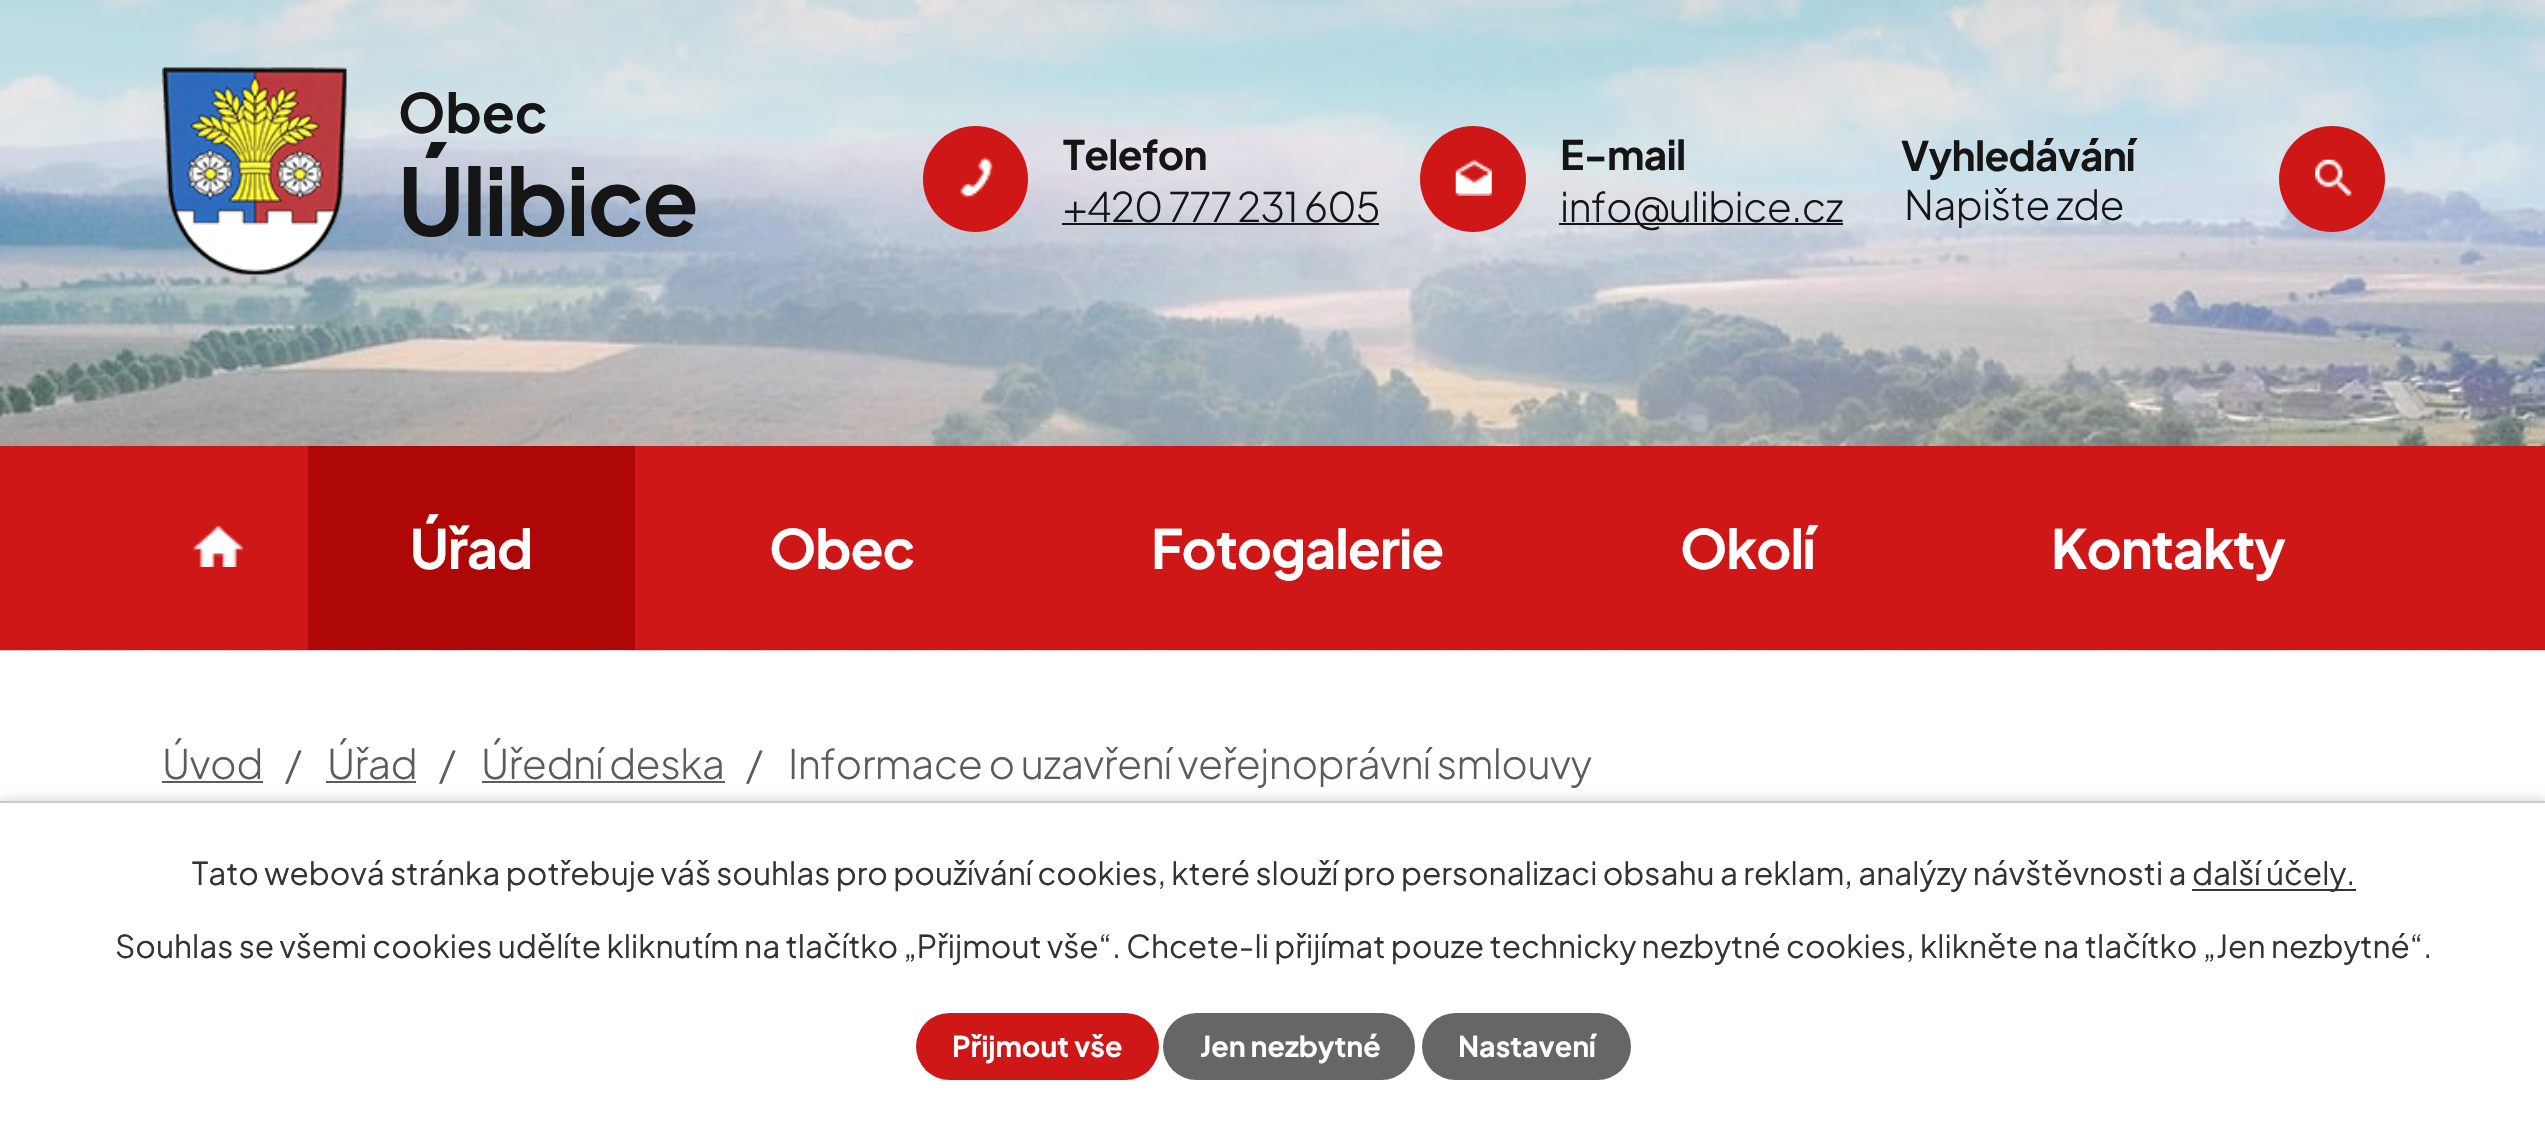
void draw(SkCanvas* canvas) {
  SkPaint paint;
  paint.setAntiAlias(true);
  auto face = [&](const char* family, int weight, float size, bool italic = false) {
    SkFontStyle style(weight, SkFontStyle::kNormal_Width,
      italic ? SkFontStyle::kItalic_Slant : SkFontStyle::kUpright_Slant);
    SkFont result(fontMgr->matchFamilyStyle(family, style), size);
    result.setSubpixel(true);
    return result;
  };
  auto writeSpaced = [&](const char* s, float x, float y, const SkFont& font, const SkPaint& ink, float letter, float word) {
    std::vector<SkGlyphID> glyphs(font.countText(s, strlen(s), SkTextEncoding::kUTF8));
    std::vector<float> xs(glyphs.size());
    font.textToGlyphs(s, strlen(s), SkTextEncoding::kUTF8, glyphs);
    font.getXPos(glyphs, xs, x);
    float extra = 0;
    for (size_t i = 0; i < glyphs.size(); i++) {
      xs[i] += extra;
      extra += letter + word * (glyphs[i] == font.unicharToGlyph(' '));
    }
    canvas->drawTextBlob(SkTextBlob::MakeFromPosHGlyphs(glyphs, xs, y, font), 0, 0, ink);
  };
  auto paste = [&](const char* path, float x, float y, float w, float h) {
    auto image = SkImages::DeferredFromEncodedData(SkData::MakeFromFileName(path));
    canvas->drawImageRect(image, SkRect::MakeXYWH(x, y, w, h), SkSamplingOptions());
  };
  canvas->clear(0xffffffff);
  paste("img/1.png", 0, 0, 2545, 651);
  paste("img/2.png", 162, 67, 185, 208);
  paint.setColor(0xffd01717);
  canvas->drawRoundRect(SkRect::MakeXYWH(923, 126, 105, 106), 52.5f, 52.5f, paint);
  paste("img/3.png", 960, 157, 33, 41);
  paint.setColor(0xff151515);
  canvas->drawRect(SkRect::MakeXYWH(1062, 223, 317, 2), paint);
  paint.setColor(0xffd01717);
  canvas->drawCircle(1473, 179, 53, paint);
  paste("img/4.png", 1455, 159, 37, 37);
  paint.setColor(0xff151515);
  canvas->drawRect(SkRect::MakeXYWH(1559, 223, 284, 2), paint);
  paint.setColor(0xffd01717);
  canvas->drawCircle(2332, 179, 53, paint);
  paste("img/5.png", 2315, 159, 37, 37);
  canvas->drawRect(SkRect::MakeXYWH(0, 446, 2545, 204), paint);
  paste("img/6.png", 193, 526, 50, 41);
  {
    const struct { float x, y, w, h; SkColor color; } items[] = {
      {308, 446, 327, 204, 0xffaf0606},
      {162, 781, 101, 2, 0xff5b5b5b},
      {326, 781, 90, 2, 0xff5b5b5b},
      {482, 781, 243, 2, 0xff5b5b5b},
    };
    for (auto [x, y, w, h, color] : items) {
      paint.setColor(color);
      canvas->drawRect(SkRect::MakeXYWH(x, y, w, h), paint);
    }
  }
  paint.setColor(0x33000000);
  paint.setMaskFilter(SkMaskFilter::MakeBlur(kNormal_SkBlurStyle, 5.5f));
  canvas->drawRect(SkRect::MakeXYWH(0, 801, 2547, 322), paint);
  paint.setMaskFilter(nullptr);
  {
    const struct { float x, y, w, h; SkColor color; } items[] = {
      {0, 803, 2545, 319, 0xffffffff},
      {0, 801, 2545, 2, 0xffcccccc},
      {2192, 889, 164, 2, 0xff333333},
    };
    for (auto [x, y, w, h, color] : items) {
      paint.setColor(color);
      canvas->drawRect(SkRect::MakeXYWH(x, y, w, h), paint);
    }
  }
  paint.setColor(0xffd01717);
  canvas->drawRoundRect(SkRect::MakeXYWH(916, 1013, 243, 67), 33.5f, 33.5f, paint);
  paint.setColor(0xff666666);
  canvas->drawRoundRect(SkRect::MakeXYWH(1163, 1013, 252, 67), 33.5f, 33.5f, paint);
  canvas->drawRoundRect(SkRect::MakeXYWH(1422, 1013, 209, 67), 33.5f, 33.5f, paint);
  auto f0 = face("Plus Jakarta Sans", 700, 54);
  paint.setColor(0xff151515);
  canvas->drawString("Obec", 398, 133, f0, paint);
  auto f1 = face("Plus Jakarta Sans", 700, 92.5f);
  writeSpaced("Úlibice", 398, 236, f1, paint, -1.75f, 0);
  auto f2 = face("Plus Jakarta Sans", 700, 40.5f);
  writeSpaced("Telefon", 1063, 170, f2, paint, -0.7f, 0);
  auto f3 = face("Plus Jakarta Sans", 300, 40.5f);
  writeSpaced("+420 777 231 605", 1063, 222, f3, paint, -0.7f, 0);
  writeSpaced("E-mail", 1560, 170, f2, paint, -0.7f, 0);
  writeSpaced("info@ulibice.cz", 1560, 222, f3, paint, -0.7f, 0);
  writeSpaced("Vyhledávání", 1901, 171, f2, paint, -0.7f, 0);
  writeSpaced("Napište zde", 1904, 220, f3, paint, -0.7f, 0);
  paint.setColor(0xffffffff);
  {
    const struct { const char* s; float x, y; } items[] = {
      {"Úřad", 410, 569},
      {"Obec", 769, 569},
      {"Fotogalerie", 1151, 569},
      {"Okolí", 1680, 569},
      {"Kontakty", 2051, 569},
    };
    for (auto [s, x, y] : items) {
      writeSpaced(s, x, y, f0, paint, -1.1f, 0);
    }
  }
  paint.setColor(0xff5b5b5b);
  {
    const struct { const char* s; float x, y; } items[] = {
      {"Úvod", 162, 779},
      {"/", 285, 779},
      {"Úřad", 327, 779},
      {"/", 439, 779},
      {"Úřední deska", 481, 779},
      {"/", 746, 779},
      {"Informace o uzavření veřejnoprávní smlouvy", 788, 779},
    };
    for (auto [s, x, y] : items) {
      writeSpaced(s, x, y, f3, paint, -0.55f, 0);
    }
  }
  auto f4 = face("Plus Jakarta Sans", 400, 31.5f);
  paint.setColor(0xff333333);
  {
    const struct { const char* s; float x, y; } items[] = {
      {"Tato webová stránka potřebuje váš souhlas pro používání cookies, které slouží pro personalizaci obsahu a reklam, analýzy návštěvnosti a", 192, 885},
      {"další účely.", 2192, 885},
      {"Souhlas se všemi cookies udělíte kliknutím na tlačítko „Přijmout vše“. Chcete-li přijímat pouze technicky nezbytné cookies, klikněte na tlačítko „Jen nezbytné“.", 115, 958},
    };
    for (auto [s, x, y] : items) {
      canvas->drawString(s, x, y, f4, paint);
    }
  }
  auto f5 = face("Plus Jakarta Sans", 700, 28.5f);
  paint.setColor(0xffffffff);
  {
    const struct { const char* s; float x, y; } items[] = {
      {"Přijmout vše", 952, 1057},
      {"Jen nezbytné", 1200, 1057},
      {"Nastavení", 1458, 1057},
    };
    for (auto [s, x, y] : items) {
      canvas->drawString(s, x, y, f5, paint);
    }
  }
}
